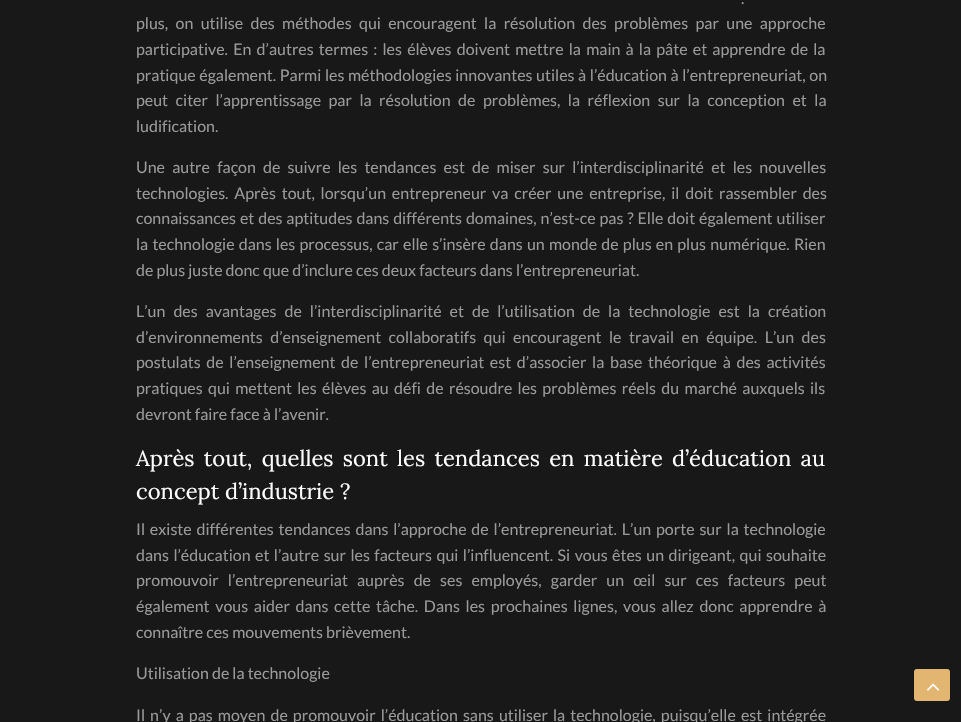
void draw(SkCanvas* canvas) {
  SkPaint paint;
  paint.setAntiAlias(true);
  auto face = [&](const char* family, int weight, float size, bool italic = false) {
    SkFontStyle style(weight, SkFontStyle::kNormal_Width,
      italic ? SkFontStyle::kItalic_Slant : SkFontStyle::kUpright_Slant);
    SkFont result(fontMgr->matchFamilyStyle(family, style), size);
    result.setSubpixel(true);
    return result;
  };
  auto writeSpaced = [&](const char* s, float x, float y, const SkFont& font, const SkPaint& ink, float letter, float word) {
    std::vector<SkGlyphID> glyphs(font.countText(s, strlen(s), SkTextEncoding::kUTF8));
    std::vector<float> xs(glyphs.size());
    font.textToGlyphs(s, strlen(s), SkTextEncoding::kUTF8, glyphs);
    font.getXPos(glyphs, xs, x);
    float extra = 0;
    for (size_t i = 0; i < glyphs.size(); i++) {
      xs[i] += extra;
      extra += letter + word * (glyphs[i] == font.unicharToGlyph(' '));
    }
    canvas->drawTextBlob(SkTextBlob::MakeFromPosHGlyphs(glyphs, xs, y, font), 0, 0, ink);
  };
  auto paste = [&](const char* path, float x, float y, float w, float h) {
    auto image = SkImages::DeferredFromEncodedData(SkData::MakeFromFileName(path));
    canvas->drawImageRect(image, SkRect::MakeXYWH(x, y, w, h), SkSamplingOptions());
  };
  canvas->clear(0xff181818);
  paint.setColor(0xffe2b570);
  canvas->drawRoundRect(SkRect::MakeXYWH(914, 669, 36, 32), 3, 3, paint);
  paste("img/1.png", 927, 683, 13, 8);
  auto f0 = face("Lato", 400, 16);
  paint.setColor(0xff999999);
  writeSpaced(".", 741, 4, f0, paint, 0, 2);
  writeSpaced("plus, on utilise des méthodes qui encouragent la résolution des problèmes par une approche", 136, 29, f0, paint, 0, 4.25f);
  writeSpaced("participative. En d’autres termes : les élèves doivent mettre la main à la pâte et apprendre de la", 136, 55, f0, paint, 0, 2.1f);
  writeSpaced("pratique également. Parmi les méthodologies innovantes utiles à l’éducation à l’entrepreneuriat, on", 136, 81, f0, paint, 0, 0.5f);
  writeSpaced("peut citer l’apprentissage par la résolution de problèmes, la réflexion sur la conception et la", 136, 106, f0, paint, 0, 4.4f);
  canvas->drawString("ludification.", 136, 132, f0, paint);
  writeSpaced("Une autre façon de suivre les tendances est de miser sur l’interdisciplinarité et les nouvelles", 136, 173, f0, paint, 0, 4.1f);
  writeSpaced("technologies. Après tout, lorsqu’un entrepreneur va créer une entreprise, il doit rassembler des", 136, 199, f0, paint, 0, 2.75f);
  writeSpaced("connaissances et des aptitudes dans différents domaines, n’est-ce pas ? Elle doit également utiliser", 136, 224, f0, paint, 0, 0.8f);
  writeSpaced("la technologie dans les processus, car elle s’insère dans un monde de plus en plus numérique. Rien", 136, 250, f0, paint, 0, 1.1f);
  canvas->drawString("de plus juste donc que d’inclure ces deux facteurs dans l’entrepreneuriat.", 136, 276, f0, paint);
  writeSpaced("L’un des avantages de l’interdisciplinarité et de l’utilisation de la technologie est la création", 136, 317, f0, paint, 0, 4.9f);
  writeSpaced("d’environnements d’enseignement collaboratifs qui encouragent le travail en équipe. L’un des", 136, 343, f0, paint, 0, 4.4f);
  writeSpaced("postulats de l’enseignement de l’entrepreneuriat est d’associer la base théorique à des activités", 136, 368, f0, paint, 0, 2.6f);
  writeSpaced("pratiques qui mettent les élèves au défi de résoudre les problèmes réels du marché auxquels ils", 136, 394, f0, paint, 0, 2.25f);
  canvas->drawString("devront faire face à l’avenir.", 136, 420, f0, paint);
  auto f1 = face("Lora", 400, 22);
  paint.setColor(0xffffffff);
  writeSpaced("Après tout, quelles sont les tendances en matière d’éducation au", 136, 466, f1, paint, 0, 3.5f);
  canvas->drawString("concept d’industrie ?", 136, 499, f1, paint);
  paint.setColor(0xff999999);
  writeSpaced("Il existe différentes tendances dans l’approche de l’entrepreneuriat. L’un porte sur la technologie", 136, 535, f0, paint, 0, 1.75f);
  writeSpaced("dans l’éducation et l’autre sur les facteurs qui l’influencent. Si vous êtes un dirigeant, qui souhaite", 136, 561, f0, paint, 0, 1.4f);
  writeSpaced("promouvoir l’entrepreneuriat auprès de ses employés, garder un œil sur ces facteurs peut", 136, 586, f0, paint, 0, 6);
  writeSpaced("également vous aider dans cette tâche. Dans les prochaines lignes, vous allez donc apprendre à", 136, 612, f0, paint, 0, 2.6f);
  canvas->drawString("connaître ces mouvements brièvement.", 136, 638, f0, paint);
  canvas->drawString("Utilisation de la technologie", 136, 679, f0, paint);
  writeSpaced("Il n’y a pas moyen de promouvoir l’éducation sans utiliser la technologie, puisqu’elle est intégrée", 136, 721, f0, paint, 0, 2);
}
